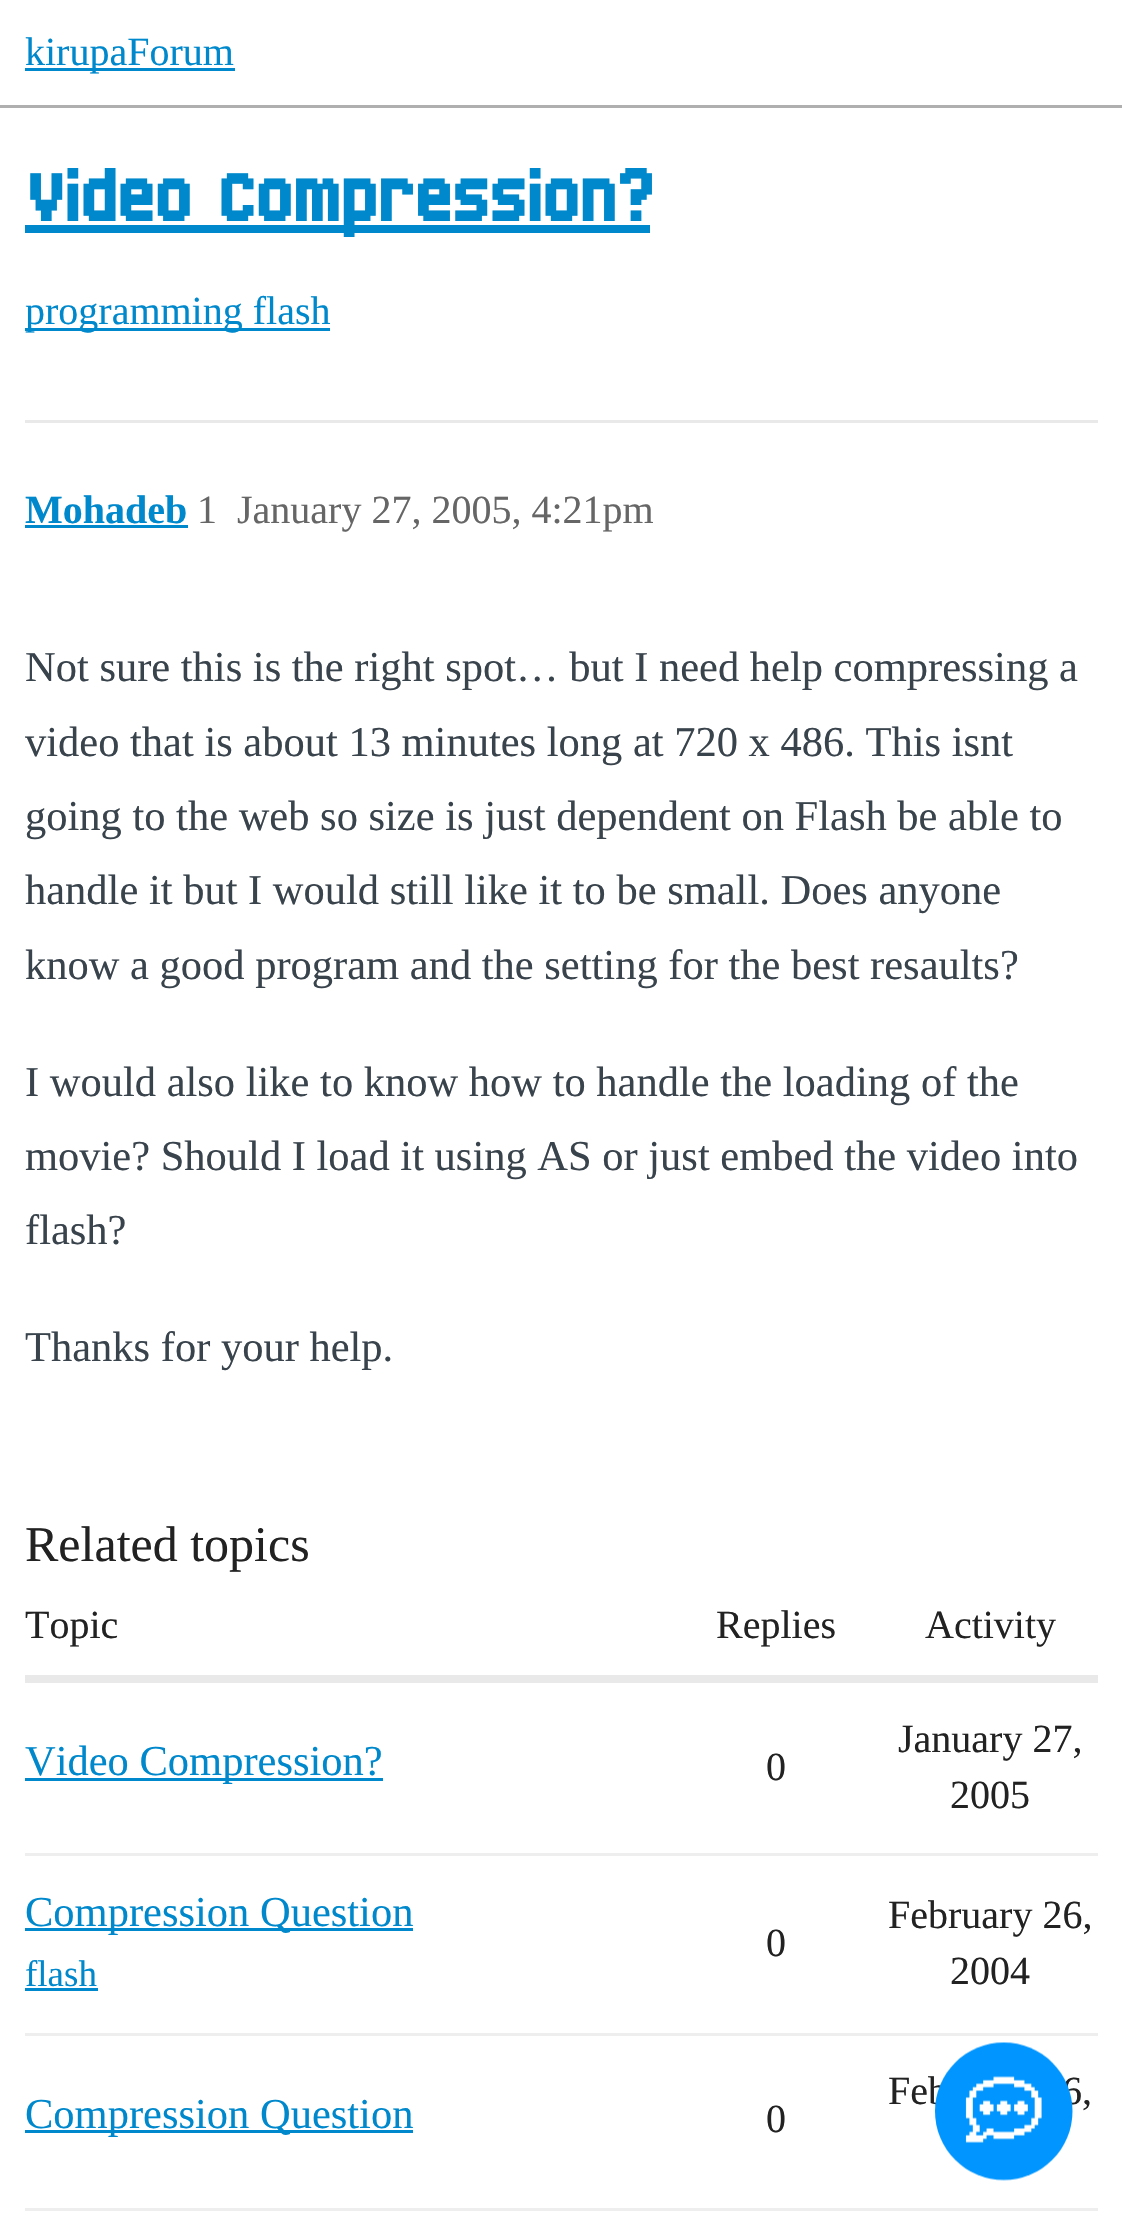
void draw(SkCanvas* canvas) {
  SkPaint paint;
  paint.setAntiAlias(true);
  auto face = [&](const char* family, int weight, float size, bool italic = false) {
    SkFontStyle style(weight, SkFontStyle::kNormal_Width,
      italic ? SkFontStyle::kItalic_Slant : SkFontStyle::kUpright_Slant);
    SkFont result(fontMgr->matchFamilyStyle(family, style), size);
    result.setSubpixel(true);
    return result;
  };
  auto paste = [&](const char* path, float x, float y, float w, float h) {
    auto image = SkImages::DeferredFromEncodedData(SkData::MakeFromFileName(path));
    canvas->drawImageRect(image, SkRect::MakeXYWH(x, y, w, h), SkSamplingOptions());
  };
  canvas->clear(0xffffffff);
  {
    const struct { float x, y, w, h; SkColor color; } items[] = {
      {0, 105, 1122, 3, 0xffafafaf},
      {25, 68, 210, 3, 0xff0088cc},
      {25, 225, 625, 8, 0xff0088cc},
      {25, 328, 305, 3, 0xff0088cc},
      {25, 420, 1073, 3, 0xffe9e9e9},
      {25, 525, 163, 3, 0xff0088cc},
      {25, 1675, 1073, 8, 0xffe9e9e9},
      {25, 1778, 358, 3, 0xff0088cc},
      {25, 1853, 1073, 3, 0xffeeeeee},
      {25, 1928, 388, 3, 0xff0088cc},
      {25, 1988, 73, 3, 0xff0088cc},
      {25, 2033, 1073, 3, 0xffeeeeee},
      {25, 2208, 1073, 3, 0xffeeeeee},
      {25, 2130, 388, 3, 0xff0088cc},
    };
    for (auto [x, y, w, h, color] : items) {
      paint.setColor(color);
      canvas->drawRect(SkRect::MakeXYWH(x, y, w, h), paint);
    }
  }
  auto f0 = face("Liberation Serif", 400, 40);
  canvas->drawString("kirupaForum", 25, 65, f0, paint);
  auto f1 = face("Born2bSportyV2", 500, 85);
  canvas->drawString("Video Compression?", 25, 221, f1, paint);
  canvas->drawString("programming flash", 25, 324, f0, paint);
  auto f2 = face("Liberation Serif", 700, 40);
  canvas->drawString("Mohadeb", 25, 523, f2, paint);
  paint.setColor(0xff666666);
  canvas->drawString("1", 197, 523, f0, paint);
  canvas->drawString("January 27, 2005, 4:21pm", 237, 523, f0, paint);
  auto f3 = face("Liberation Serif", 400, 42.5f);
  paint.setColor(0xff39434c);
  {
    const struct { const char* s; float x, y; } items[] = {
      {"Not sure this is the right spot… but I need help compressing a", 25, 681},
      {"video that is about 13 minutes long at 720 x 486. This isnt", 25, 756},
      {"going to the web so size is just dependent on Flash be able to", 25, 830},
      {"handle it but I would still like it to be small. Does anyone", 25, 904},
      {"know a good program and the setting for the best resaults?", 25, 979},
      {"I would also like to know how to handle the loading of the", 25, 1096},
      {"movie? Should I load it using AS or just embed the video into", 25, 1170},
      {"flash?", 25, 1244},
      {"Thanks for your help.", 25, 1361},
    };
    for (auto [s, x, y] : items) {
      canvas->drawString(s, x, y, f3, paint);
    }
  }
  auto f4 = face("Liberation Serif", 400, 50);
  paint.setColor(0xff222222);
  canvas->drawString("Related topics", 25, 1561, f4, paint);
  {
    const struct { const char* s; float x, y; } items[] = {
      {"Topic", 25, 1638},
      {"Replies", 716, 1638},
      {"Activity", 925, 1638},
    };
    for (auto [s, x, y] : items) {
      canvas->drawString(s, x, y, f0, paint);
    }
  }
  paint.setColor(0xff0088cc);
  canvas->drawString("Video Compression?", 25, 1775, f3, paint);
  paint.setColor(0xff222222);
  {
    const struct { const char* s; float x, y; } items[] = {
      {"0", 766, 1780},
      {"January 27,", 898, 1752},
      {"2005", 950, 1808},
    };
    for (auto [s, x, y] : items) {
      canvas->drawString(s, x, y, f0, paint);
    }
  }
  paint.setColor(0xff0088cc);
  canvas->drawString("Compression Question", 25, 1926, f3, paint);
  auto f5 = face("Liberation Serif", 400, 37);
  canvas->drawString("flash", 25, 1986, f5, paint);
  paint.setColor(0xff222222);
  {
    const struct { const char* s; float x, y; } items[] = {
      {"0", 766, 1956},
      {"February 26,", 888, 1928},
      {"2004", 950, 1984},
      {"Feb", 888, 2104},
      {"6,", 1062, 2104},
    };
    for (auto [s, x, y] : items) {
      canvas->drawString(s, x, y, f0, paint);
    }
  }
  paint.setColor(0xff0088cc);
  canvas->drawString("Compression Question", 25, 2128, f3, paint);
  paint.setColor(0xff222222);
  canvas->drawString("0", 766, 2132, f0, paint);
  paste("img/1.png", 935, 2042, 138, 139);
}
